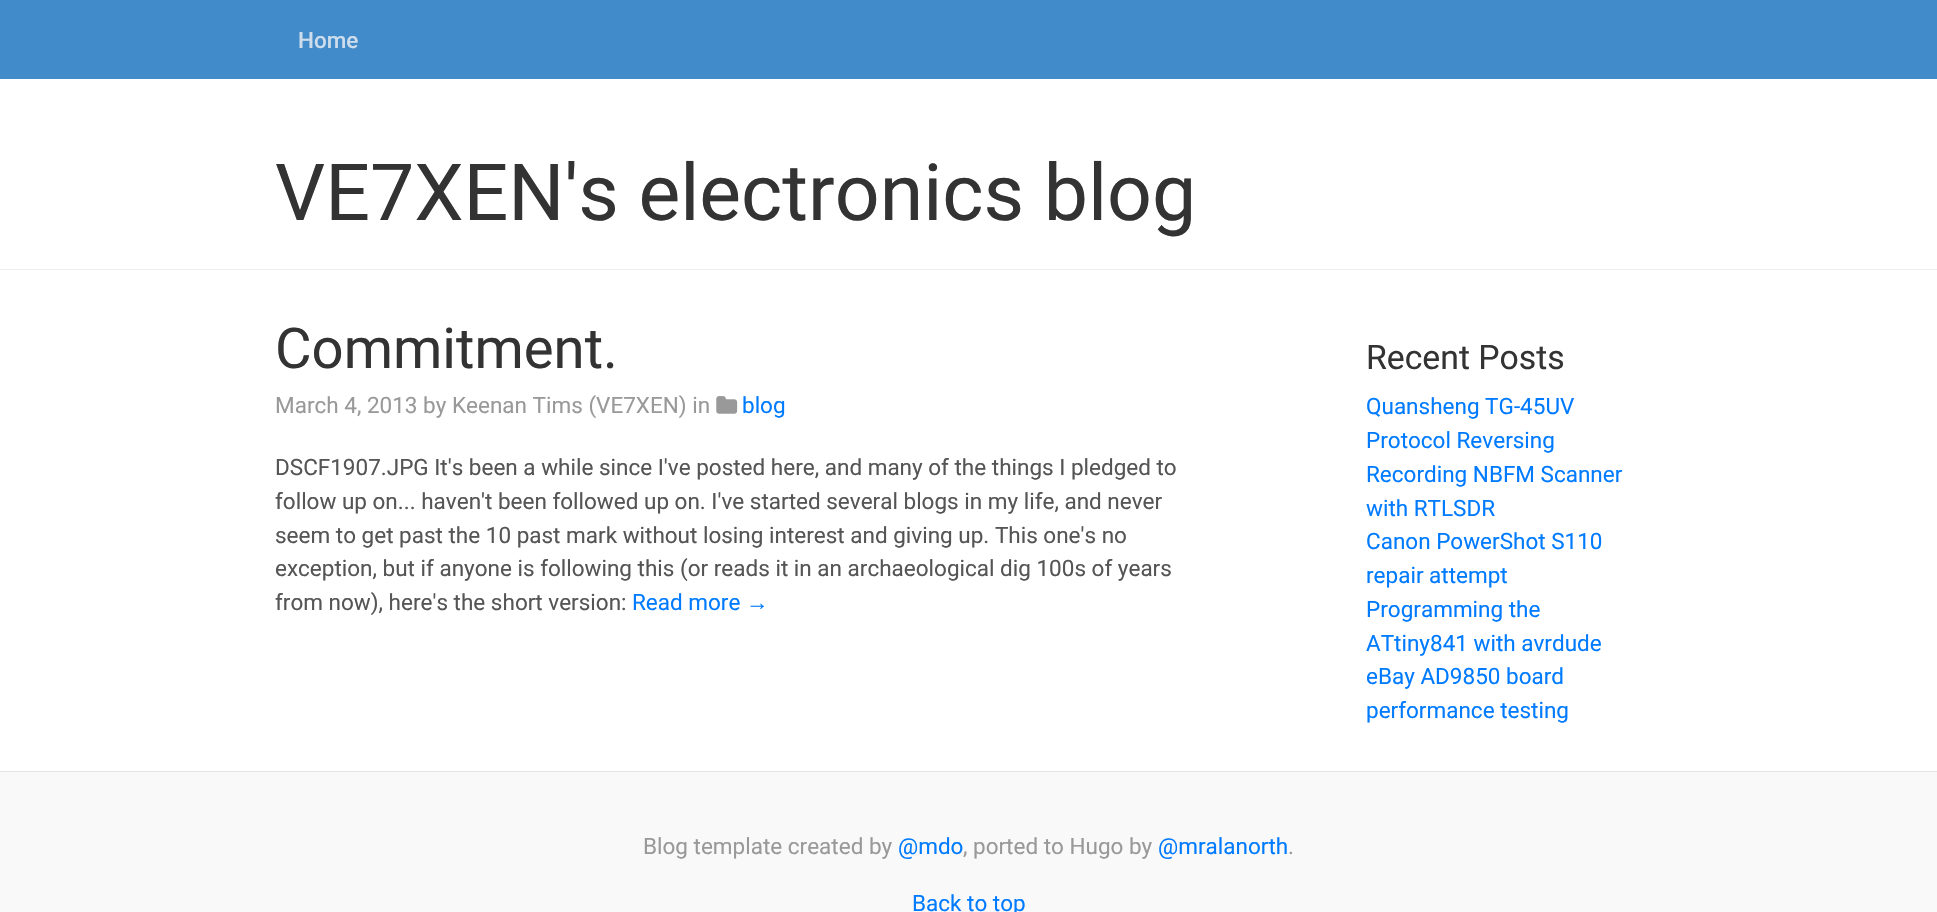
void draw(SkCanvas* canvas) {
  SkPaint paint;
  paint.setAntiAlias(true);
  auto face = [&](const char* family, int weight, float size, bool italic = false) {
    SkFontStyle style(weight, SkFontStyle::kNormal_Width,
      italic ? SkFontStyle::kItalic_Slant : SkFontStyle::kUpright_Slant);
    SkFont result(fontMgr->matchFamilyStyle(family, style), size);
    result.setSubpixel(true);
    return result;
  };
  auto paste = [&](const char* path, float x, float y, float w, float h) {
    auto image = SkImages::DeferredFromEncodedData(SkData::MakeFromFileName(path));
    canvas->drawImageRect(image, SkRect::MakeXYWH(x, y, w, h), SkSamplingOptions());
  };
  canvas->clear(0xffffffff);
  paint.setColor(0xff428bca);
  canvas->drawRect(SkRect::MakeXYWH(0, 0, 1937, 79), paint);
  paint.setColor(0xffeeeeee);
  canvas->drawRect(SkRect::MakeXYWH(0, 269, 1937, 1), paint);
  paste("img/1.png", 716, 396, 22, 18);
  paint.setColor(0xfff9f9f9);
  canvas->drawRect(SkRect::MakeXYWH(0, 772, 1937, 140), paint);
  paint.setColor(0xffe5e5e5);
  canvas->drawRect(SkRect::MakeXYWH(0, 771, 1937, 1), paint);
  auto f0 = face("Roboto", 500, 22.5f);
  paint.setColor(0xffcdddeb);
  canvas->drawString("Home", 298, 48, f0, paint);
  auto f1 = face("Roboto", 400, 78.75f);
  paint.setColor(0xff333333);
  canvas->drawString("VE7XEN's electronics blog", 275, 220, f1, paint);
  auto f2 = face("Roboto", 400, 56.25f);
  canvas->drawString("Commitment.", 275, 368, f2, paint);
  auto f3 = face("Roboto", 400, 22.5f);
  paint.setColor(0xff999999);
  canvas->drawString("March 4, 2013 by Keenan Tims (VE7XEN) in", 275, 413, f3, paint);
  paint.setColor(0xff007bff);
  canvas->drawString("blog", 742, 413, f3, paint);
  paint.setColor(0xff555555);
  {
    const struct { const char* s; float x, y; } items[] = {
      {"DSCF1907.JPG It's been a while since I've posted here, and many of the things I pledged to", 275, 475},
      {"follow up on... haven't been followed up on. I've started several blogs in my life, and never", 275, 509},
      {"seem to get past the 10 past mark without losing interest and giving up. This one's no", 275, 543},
      {"exception, but if anyone is following this (or reads it in an archaeological dig 100s of years", 275, 576},
      {"from now), here's the short version:", 275, 610},
    };
    for (auto [s, x, y] : items) {
      canvas->drawString(s, x, y, f3, paint);
    }
  }
  paint.setColor(0xff007bff);
  canvas->drawString("Read more", 632, 610, f3, paint);
  auto f4 = face("Liberation Sans", 400, 22.5f);
  canvas->drawString("→", 746, 610, f4, paint);
  auto f5 = face("Roboto", 400, 33.75f);
  paint.setColor(0xff333333);
  canvas->drawString("Recent Posts", 1366, 369, f5, paint);
  paint.setColor(0xff007bff);
  {
    const struct { const char* s; float x, y; } items[] = {
      {"Quansheng TG-45UV", 1366, 414},
      {"Protocol Reversing", 1366, 448},
      {"Recording NBFM Scanner", 1366, 482},
      {"with RTLSDR", 1366, 516},
      {"Canon PowerShot S110", 1366, 549},
      {"repair attempt", 1366, 583},
      {"Programming the", 1366, 617},
      {"ATtiny841 with avrdude", 1366, 651},
      {"eBay AD9850 board", 1366, 684},
      {"performance testing", 1366, 718},
    };
    for (auto [s, x, y] : items) {
      canvas->drawString(s, x, y, f3, paint);
    }
  }
  paint.setColor(0xff999999);
  canvas->drawString("Blog template created by", 643, 854, f3, paint);
  paint.setColor(0xff007bff);
  canvas->drawString("@mdo", 898, 854, f3, paint);
  paint.setColor(0xff999999);
  canvas->drawString(", ported to Hugo by", 963, 854, f3, paint);
  paint.setColor(0xff007bff);
  canvas->drawString("@mralanorth", 1158, 854, f3, paint);
  paint.setColor(0xff999999);
  canvas->drawString(".", 1288, 854, f3, paint);
  paint.setColor(0xff007bff);
  canvas->drawString("Back to top", 912, 911, f3, paint);
}
